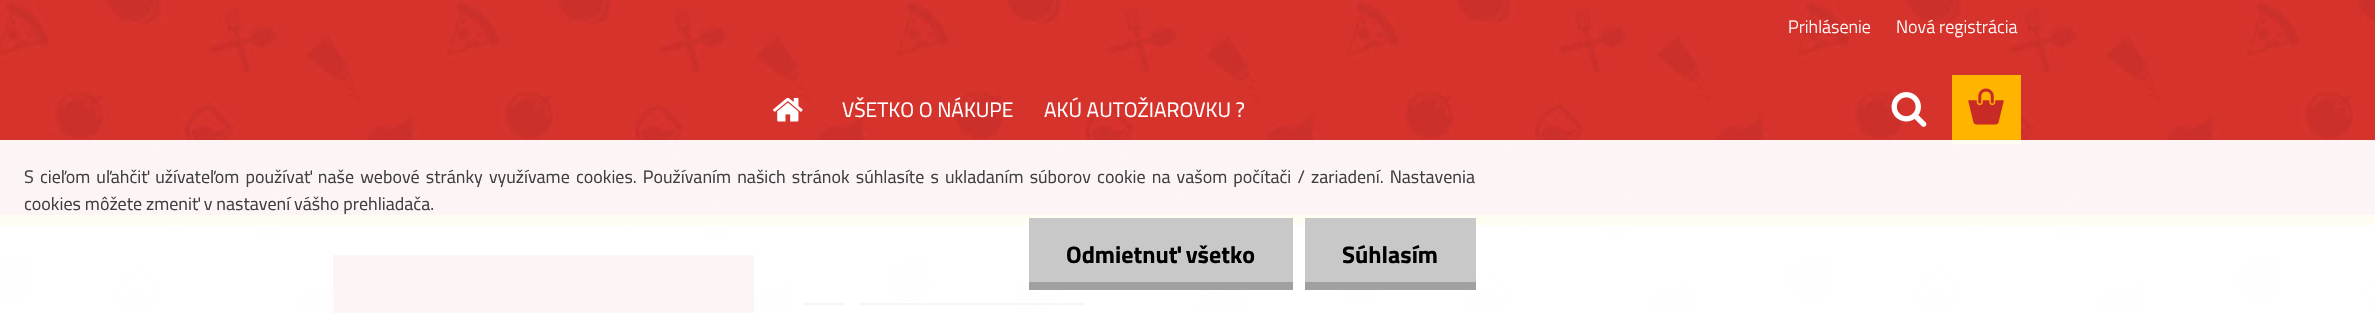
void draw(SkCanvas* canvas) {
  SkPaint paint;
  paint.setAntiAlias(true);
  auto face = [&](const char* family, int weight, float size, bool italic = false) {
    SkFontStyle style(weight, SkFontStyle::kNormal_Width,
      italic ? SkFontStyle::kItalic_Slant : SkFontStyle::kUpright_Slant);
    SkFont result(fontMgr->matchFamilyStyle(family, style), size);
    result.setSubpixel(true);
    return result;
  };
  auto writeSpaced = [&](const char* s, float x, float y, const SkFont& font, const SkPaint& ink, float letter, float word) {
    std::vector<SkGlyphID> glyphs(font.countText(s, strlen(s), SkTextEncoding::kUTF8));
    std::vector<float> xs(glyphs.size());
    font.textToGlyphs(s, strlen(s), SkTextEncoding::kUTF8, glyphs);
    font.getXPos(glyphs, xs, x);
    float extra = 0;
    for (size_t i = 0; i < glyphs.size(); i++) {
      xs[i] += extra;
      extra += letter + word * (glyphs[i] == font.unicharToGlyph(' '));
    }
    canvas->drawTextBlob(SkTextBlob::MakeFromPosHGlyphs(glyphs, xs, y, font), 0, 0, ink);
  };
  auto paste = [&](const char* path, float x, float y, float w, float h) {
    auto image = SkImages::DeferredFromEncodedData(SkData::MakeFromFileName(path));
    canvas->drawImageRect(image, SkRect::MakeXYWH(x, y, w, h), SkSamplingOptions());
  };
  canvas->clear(0xffffffff);
  paste("img/1.png", 0, 225, 2375, 88);
  paste("img/3.png", 0, 0, 2375, 215);
  paint.setColor(0xffffb400);
  canvas->drawRect(SkRect::MakeXYWH(1952, 75, 69, 69), paint);
  paste("img/2.png", 1968, 88, 36, 37);
  {
    const struct { float x, y, w, h; SkColor color; } items[] = {
      {333, 255, 421, 58, 0xffd7332d},
      {803, 303, 42, 2, 0xff494949},
      {860, 303, 225, 2, 0xb3000000},
      {0, 215, 2375, 10, 0xffffb400},
    };
    for (auto [x, y, w, h, color] : items) {
      paint.setColor(color);
      canvas->drawRect(SkRect::MakeXYWH(x, y, w, h), paint);
    }
  }
  paste("img/4.png", 773, 97, 30, 25);
  paste("img/5.png", 1891, 92, 36, 35);
  {
    const struct { float x, y, w, h; SkColor color; } items[] = {
      {0, 140, 2375, 173, 0xf2ffffff},
      {1029, 218, 264, 64, 0xffc8c8c8},
      {1029, 282, 264, 8, 0xffa0a0a0},
      {1305, 218, 171, 64, 0xffc8c8c8},
      {1305, 282, 171, 8, 0xffa0a0a0},
    };
    for (auto [x, y, w, h, color] : items) {
      paint.setColor(color);
      canvas->drawRect(SkRect::MakeXYWH(x, y, w, h), paint);
    }
  }
  auto f0 = face("Titillium Web", 300, 18);
  paint.setColor(0xffffffff);
  canvas->drawString("Prihlásenie", 1788, 33, f0, paint);
  canvas->drawString("Nová registrácia", 1896, 33, f0, paint);
  auto f1 = face("Titillium Web", 400, 21);
  canvas->drawString("VŠETKO O NÁKUPE", 842, 117, f1, paint);
  canvas->drawString("AKÚ AUTOŽIAROVKU ?", 1044, 117, f1, paint);
  auto f2 = face("Titillium Web", 400, 18);
  paint.setColor(0xff3f3f3f);
  writeSpaced("S cieľom uľahčiť užívateľom používať naše webové stránky využívame cookies. Používaním našich stránok súhlasíte s ukladaním súborov cookie na vašom počítači / zariadení. Nastavenia", 24, 183, f2, paint, 0, 2.2f);
  canvas->drawString("cookies môžete zmeniť v nastavení vášho prehliadača.", 24, 210, f2, paint);
  auto f3 = face("Titillium Web", 700, 24);
  paint.setColor(0xff000000);
  canvas->drawString("Odmietnuť všetko", 1066, 263, f3, paint);
  canvas->drawString("Súhlasím", 1342, 263, f3, paint);
}
